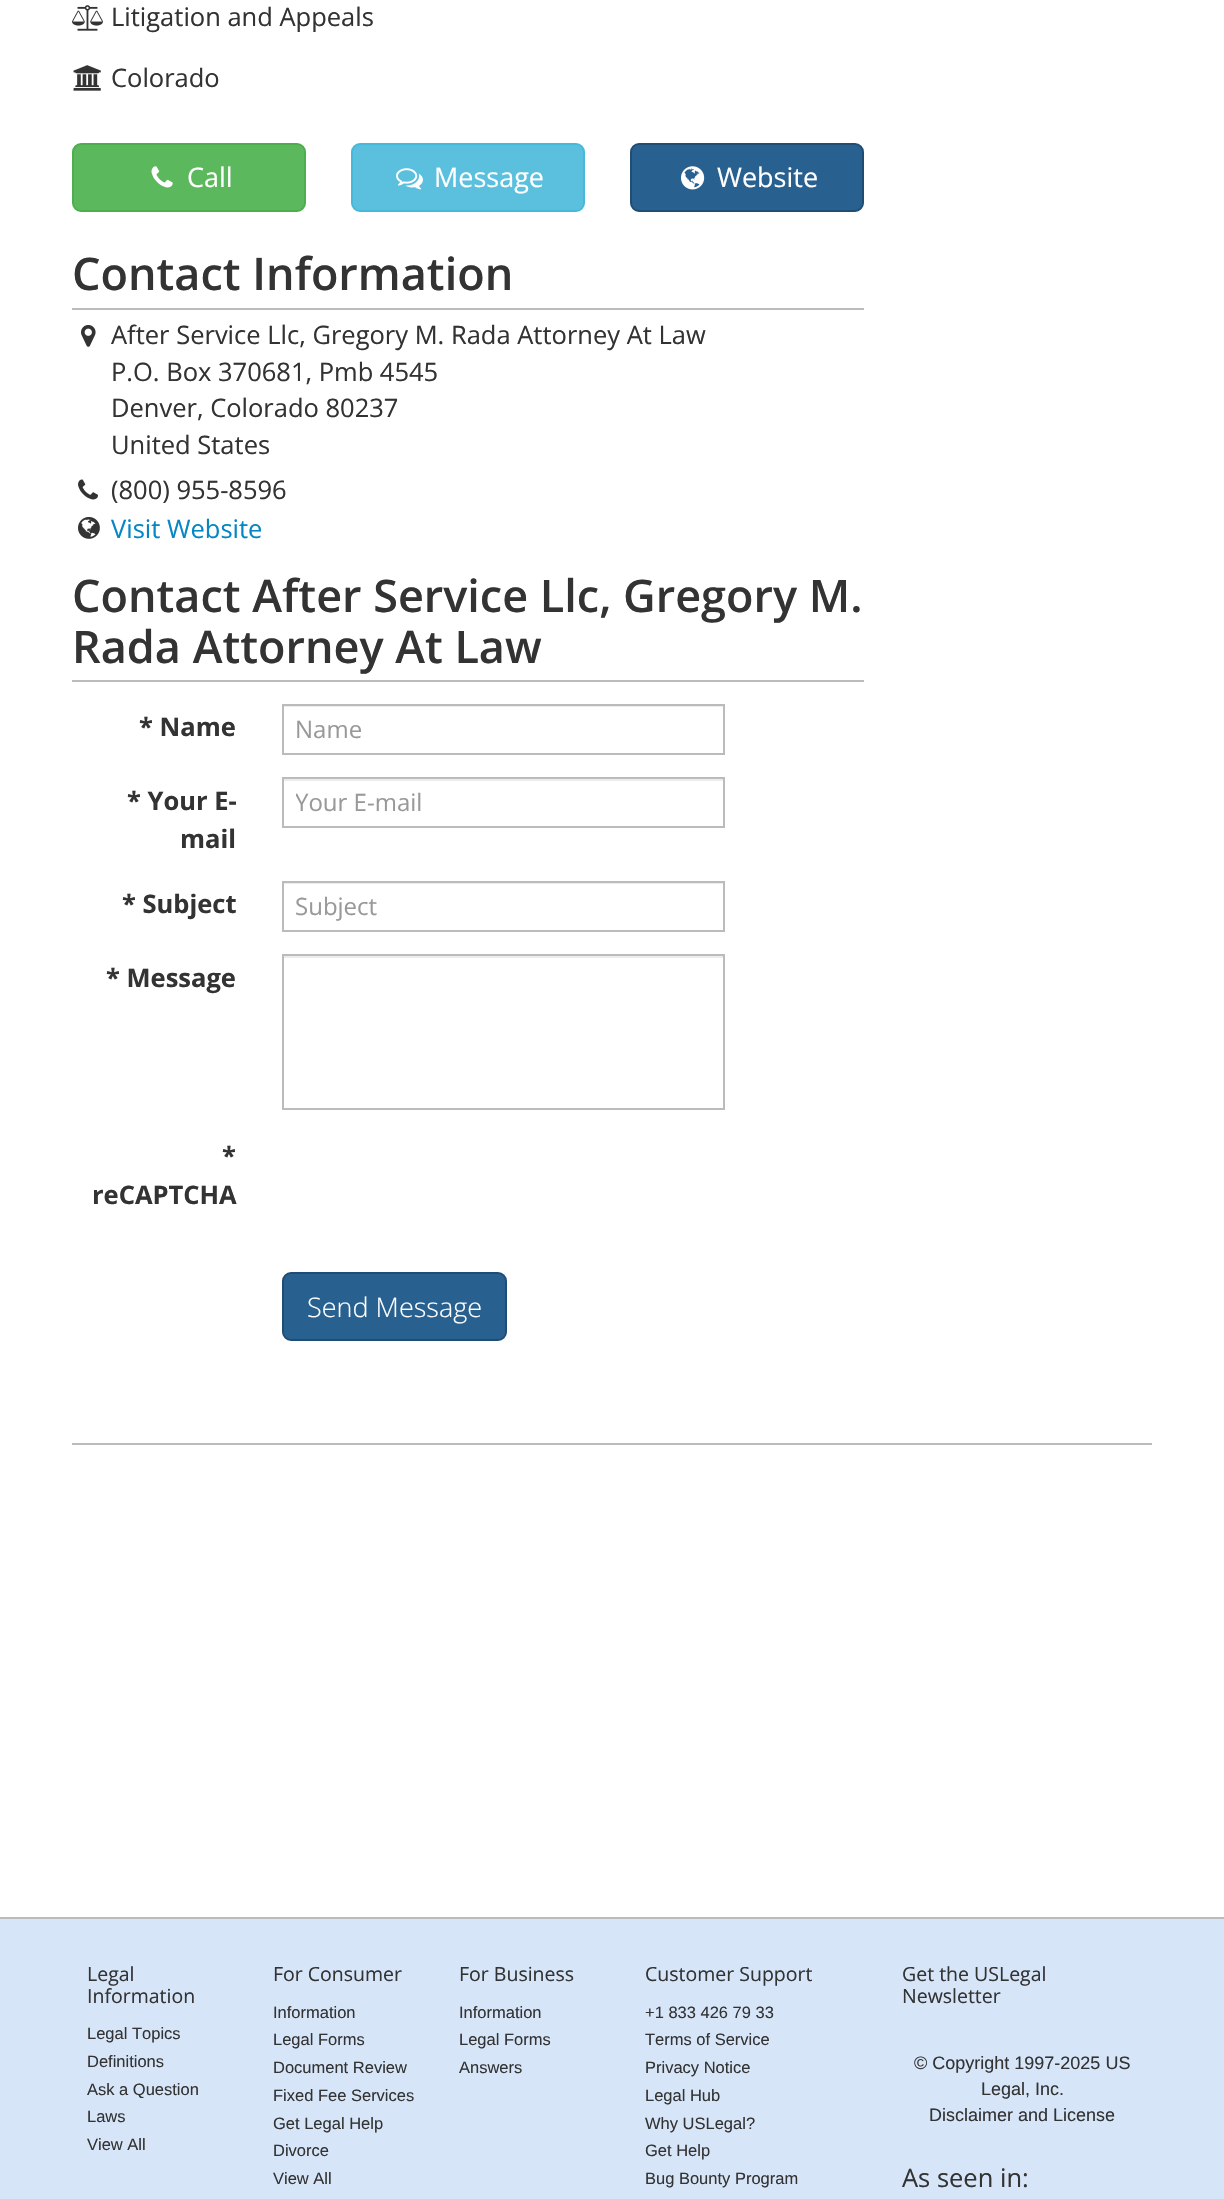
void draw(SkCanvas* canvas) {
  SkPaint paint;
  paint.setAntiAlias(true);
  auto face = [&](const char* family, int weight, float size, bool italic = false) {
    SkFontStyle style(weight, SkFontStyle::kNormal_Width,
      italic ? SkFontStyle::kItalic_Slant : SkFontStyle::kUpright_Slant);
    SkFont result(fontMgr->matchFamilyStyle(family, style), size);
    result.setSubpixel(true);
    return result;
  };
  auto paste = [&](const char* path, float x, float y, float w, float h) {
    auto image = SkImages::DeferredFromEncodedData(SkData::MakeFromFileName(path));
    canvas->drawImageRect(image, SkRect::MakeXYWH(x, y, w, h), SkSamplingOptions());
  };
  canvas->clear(0xffffffff);
  paste("img/1.png", 72, 5, 31, 26);
  paste("img/2.png", 73, 65, 28, 26);
  paint.setColor(0xff5cb85c);
  canvas->drawRoundRect(SkRect::MakeXYWH(73, 144, 232, 67), 8, 8, paint);
  paint.setStroke(true);
  paint.setStrokeWidth(2);
  paint.setColor(0xff4cae4c);
  canvas->drawRoundRect(SkRect::MakeXYWH(73, 144, 232, 67), 8, 8, paint);
  paste("img/3.png", 151, 166, 22, 22);
  paint.setStroke(false);
  paint.setColor(0xff5bc0de);
  canvas->drawRoundRect(SkRect::MakeXYWH(352, 144, 232, 67), 8, 8, paint);
  paint.setStroke(true);
  paint.setColor(0xff46b8da);
  canvas->drawRoundRect(SkRect::MakeXYWH(352, 144, 232, 67), 8, 8, paint);
  paste("img/4.png", 396, 168, 27, 22);
  paint.setStroke(false);
  paint.setColor(0xff286090);
  canvas->drawRoundRect(SkRect::MakeXYWH(631, 144, 232, 67), 8, 8, paint);
  paint.setStroke(true);
  paint.setColor(0xff204d74);
  canvas->drawRoundRect(SkRect::MakeXYWH(631, 144, 232, 67), 8, 8, paint);
  paste("img/5.png", 681, 166, 24, 24);
  paint.setStroke(false);
  paint.setColor(0xffbbbbbb);
  canvas->drawRect(SkRect::MakeXYWH(72, 308, 792, 2), paint);
  paste("img/6.png", 81, 325, 15, 22);
  paste("img/7.png", 78, 479, 20, 21);
  paste("img/8.png", 78, 517, 22, 22);
  canvas->drawRect(SkRect::MakeXYWH(72, 680, 792, 2), paint);
  paint.setColor(0xffececec);
  canvas->drawRect(SkRect::MakeXYWH(284, 706, 439, 1), paint);
  paint.setStroke(true);
  paint.setColor(0xffbbbbbb);
  canvas->drawRect(SkRect::MakeXYWH(283, 705, 441, 49), paint);
  paint.setStroke(false);
  paint.setColor(0xffececec);
  canvas->drawRect(SkRect::MakeXYWH(284, 779, 439, 2), paint);
  paint.setStroke(true);
  paint.setColor(0xffbbbbbb);
  canvas->drawRect(SkRect::MakeXYWH(283, 778, 441, 49), paint);
  paint.setStroke(false);
  paint.setColor(0xffececec);
  canvas->drawRect(SkRect::MakeXYWH(284, 883, 439, 1), paint);
  paint.setStroke(true);
  paint.setColor(0xffbbbbbb);
  canvas->drawRect(SkRect::MakeXYWH(283, 882, 441, 49), paint);
  paint.setStroke(false);
  paint.setColor(0xffececec);
  canvas->drawRect(SkRect::MakeXYWH(284, 956, 439, 2), paint);
  paint.setStroke(true);
  paint.setColor(0xffbbbbbb);
  canvas->drawRect(SkRect::MakeXYWH(283, 955, 441, 154), paint);
  paint.setStroke(false);
  paint.setColor(0xff286090);
  canvas->drawRoundRect(SkRect::MakeXYWH(283, 1273, 223, 67), 8, 8, paint);
  paint.setStroke(true);
  paint.setColor(0xff204d74);
  canvas->drawRoundRect(SkRect::MakeXYWH(283, 1273, 223, 67), 8, 8, paint);
  paint.setStroke(false);
  paint.setColor(0xffbbbbbb);
  canvas->drawRect(SkRect::MakeXYWH(72, 1443, 1080, 2), paint);
  {
    const SkColor colors[] = {0xffd6e5f8, 0xffd6e5f8, 0xfff9f9f9};
    const float stops[] = {0, 0.5f, 1};
    const SkPoint ends[] = {{612, 1919}, {612, 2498}};
    paint.setShader(SkGradientShader::MakeLinear(ends, colors, stops, 3, SkTileMode::kClamp));
    paint.setAlpha(255);
  }
  canvas->drawRect(SkRect::MakeXYWH(0, 1919, 1224, 280), paint);
  paint.setShader(nullptr);
  paint.setColor(0xffbbbbbb);
  canvas->drawRect(SkRect::MakeXYWH(0, 1917, 1224, 2), paint);
  auto f0 = face("Open Sans", 400, 25.5f);
  paint.setColor(0xff333333);
  canvas->drawString("Litigation and Appeals", 111, 26, f0, paint);
  canvas->drawString("Colorado", 111, 87, f0, paint);
  auto f1 = face("Open Sans", 400, 27);
  paint.setColor(0xffffffff);
  {
    const struct { const char* s; float x, y; } items[] = {
      {"Call", 187, 187},
      {"Message", 434, 187},
      {"Website", 717, 187},
    };
    for (auto [s, x, y] : items) {
      canvas->drawString(s, x, y, f1, paint);
    }
  }
  auto f2 = face("Open Sans", 600, 45);
  paint.setColor(0xff333333);
  canvas->drawString("Contact Information", 72, 290, f2, paint);
  {
    const struct { const char* s; float x, y; } items[] = {
      {"After Service Llc, Gregory M. Rada Attorney At Law", 111, 344},
      {"P.O. Box 370681, Pmb 4545", 111, 381},
      {"Denver, Colorado 80237", 111, 417},
      {"United States", 111, 454},
      {"(800) 955-8596", 111, 499},
    };
    for (auto [s, x, y] : items) {
      canvas->drawString(s, x, y, f0, paint);
    }
  }
  paint.setColor(0xff0487c4);
  canvas->drawString("Visit Website", 111, 538, f0, paint);
  paint.setColor(0xff333333);
  canvas->drawString("Contact After Service Llc, Gregory M.", 72, 612, f2, paint);
  canvas->drawString("Rada Attorney At Law", 72, 663, f2, paint);
  auto f3 = face("Open Sans", 700, 25.5f);
  canvas->drawString("* Name", 139, 736, f3, paint);
  auto f4 = face("Open Sans", 400, 24);
  paint.setColor(0xff999999);
  canvas->drawString("Name", 295, 738, f4, paint);
  paint.setColor(0xff333333);
  canvas->drawString("* Your E-", 127, 810, f3, paint);
  canvas->drawString("mail", 180, 848, f3, paint);
  canvas->save();
  canvas->clipRect(SkRect::MakeXYWH(296, 786, 415, 33));
  paint.setColor(0xff999999);
  canvas->drawString("Your E-mail", 295, 811, f4, paint);
  canvas->restore();
  paint.setColor(0xff333333);
  canvas->drawString("* Subject", 122, 913, f3, paint);
  paint.setColor(0xff999999);
  canvas->drawString("Subject", 295, 915, f4, paint);
  paint.setColor(0xff333333);
  {
    const struct { const char* s; float x, y; } items[] = {
      {"* Message", 106, 987},
      {"*", 222, 1165},
      {"reCAPTCHA", 92, 1204},
    };
    for (auto [s, x, y] : items) {
      canvas->drawString(s, x, y, f3, paint);
    }
  }
  auto f5 = face("Open Sans", 300, 27);
  paint.setColor(0xffffffff);
  canvas->drawString("Send Message", 307, 1317, f5, paint);
  auto f6 = face("Open Sans", 400, 19.5f);
  paint.setColor(0xff333333);
  canvas->drawString("Legal", 87, 1981, f6, paint);
  canvas->drawString("Information", 87, 2003, f6, paint);
  auto f7 = face("Liberation Sans", 400, 16.5f);
  {
    const struct { const char* s; float x, y; } items[] = {
      {"Legal Topics", 87, 2039},
      {"Definitions", 87, 2067},
      {"Ask a Question", 87, 2095},
      {"Laws", 87, 2122},
      {"View All", 87, 2150},
    };
    for (auto [s, x, y] : items) {
      canvas->drawString(s, x, y, f7, paint);
    }
  }
  canvas->drawString("For Consumer", 273, 1981, f6, paint);
  {
    const struct { const char* s; float x, y; } items[] = {
      {"Information", 273, 2018},
      {"Legal Forms", 273, 2045},
      {"Document Review", 273, 2073},
      {"Fixed Fee Services", 273, 2101},
      {"Get Legal Help", 273, 2129},
      {"Divorce", 273, 2156},
      {"View All", 273, 2184},
    };
    for (auto [s, x, y] : items) {
      canvas->drawString(s, x, y, f7, paint);
    }
  }
  canvas->drawString("For Business", 459, 1981, f6, paint);
  {
    const struct { const char* s; float x, y; } items[] = {
      {"Information", 459, 2018},
      {"Legal Forms", 459, 2045},
      {"Answers", 459, 2073},
    };
    for (auto [s, x, y] : items) {
      canvas->drawString(s, x, y, f7, paint);
    }
  }
  canvas->drawString("Customer Support", 645, 1981, f6, paint);
  {
    const struct { const char* s; float x, y; } items[] = {
      {"+1 833 426 79 33", 645, 2018},
      {"Terms of Service", 645, 2045},
      {"Privacy Notice", 645, 2073},
      {"Legal Hub", 645, 2101},
      {"Why USLegal?", 645, 2129},
      {"Get Help", 645, 2156},
      {"Bug Bounty Program", 645, 2184},
    };
    for (auto [s, x, y] : items) {
      canvas->drawString(s, x, y, f7, paint);
    }
  }
  canvas->drawString("Get the USLegal", 902, 1981, f6, paint);
  canvas->drawString("Newsletter", 902, 2003, f6, paint);
  auto f8 = face("Liberation Sans", 400, 18);
  {
    const struct { const char* s; float x, y; } items[] = {
      {"© Copyright 1997-2025 US", 914, 2069},
      {"Legal, Inc.", 981, 2095},
      {"Disclaimer and License", 929, 2121},
    };
    for (auto [s, x, y] : items) {
      canvas->drawString(s, x, y, f8, paint);
    }
  }
  canvas->drawString("As seen in:", 902, 2187, f0, paint);
}
